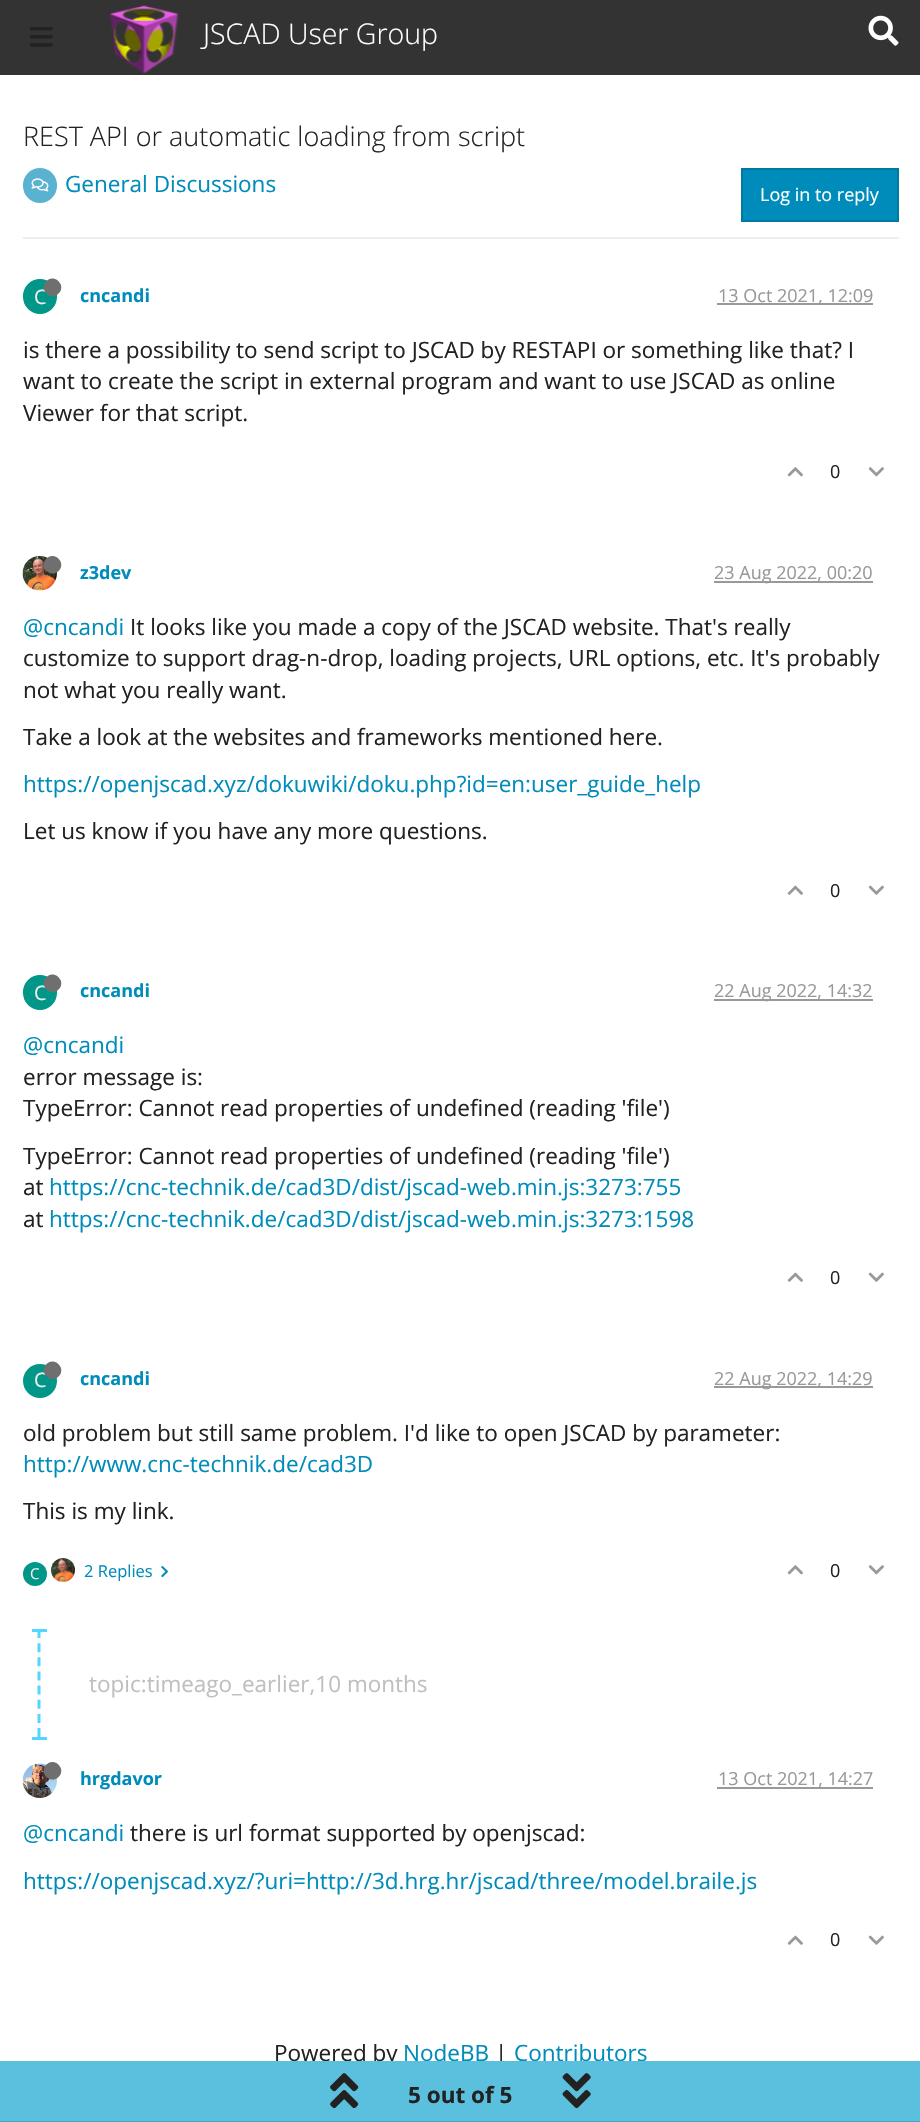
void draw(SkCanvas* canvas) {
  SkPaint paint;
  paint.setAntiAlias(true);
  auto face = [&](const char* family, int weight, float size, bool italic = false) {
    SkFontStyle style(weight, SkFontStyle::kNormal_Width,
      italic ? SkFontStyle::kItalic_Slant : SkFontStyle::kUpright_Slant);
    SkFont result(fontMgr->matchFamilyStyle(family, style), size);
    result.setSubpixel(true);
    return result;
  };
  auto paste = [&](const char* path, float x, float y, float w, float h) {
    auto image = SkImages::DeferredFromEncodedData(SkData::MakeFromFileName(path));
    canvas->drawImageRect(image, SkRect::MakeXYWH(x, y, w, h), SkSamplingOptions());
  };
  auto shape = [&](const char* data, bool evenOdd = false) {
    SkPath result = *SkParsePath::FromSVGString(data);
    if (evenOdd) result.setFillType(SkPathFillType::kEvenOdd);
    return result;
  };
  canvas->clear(0xffffffff);
  paint.setColor(0xff333333);
  canvas->drawRect(SkRect::MakeXYWH(0, 0, 920, 75), paint);
  paste("img/1.png", 30, 27, 23, 20);
  paste("img/2.png", 109, 5, 70, 69);
  paste("img/3.png", 868, 15, 31, 31);
  paint.setColor(0xffeeeeee);
  canvas->drawRect(SkRect::MakeXYWH(23, 237, 876, 2), paint);
  paint.setColor(0xff59b3d0);
  canvas->drawRoundRect(SkRect::MakeXYWH(23, 168, 34, 35), 17, 17, paint);
  paste("img/4.png", 31, 178, 18, 14);
  paint.setColor(0xff008cba);
  canvas->drawRect(SkRect::MakeXYWH(742, 169, 156, 52), paint);
  paint.setStroke(true);
  paint.setStrokeWidth(2);
  paint.setColor(0xff0079a1);
  canvas->drawRect(SkRect::MakeXYWH(742, 169, 156, 52), paint);
  paint.setStroke(false);
  paint.setColor(0xff009688);
  canvas->drawRoundRect(SkRect::MakeXYWH(23, 279, 34, 35), 17, 17, paint);
  paint.setColor(0xff999999);
  canvas->drawRect(SkRect::MakeXYWH(717, 303, 156, 2), paint);
  paste("img/5.png", 787, 467, 16, 10);
  paste("img/6.png", 868, 467, 16, 10);
  paste("img/7.png", 22, 556, 35, 35);
  paint.setColor(0xff6f6f6f);
  canvas->drawPath(shape("M46.5 558.5C54.5 550.5 67 563 58.5 571C50.5 579 38 566.5 46.5 558.5Z"), paint);
  paint.setColor(0xff999999);
  canvas->drawRect(SkRect::MakeXYWH(714, 581, 159, 2), paint);
  paste("img/8.png", 787, 885, 16, 10);
  paste("img/9.png", 868, 885, 16, 10);
  paint.setColor(0xff009688);
  canvas->drawRoundRect(SkRect::MakeXYWH(23, 975, 34, 35), 17, 17, paint);
  paint.setColor(0xff999999);
  canvas->drawRect(SkRect::MakeXYWH(714, 999, 159, 2), paint);
  paste("img/8.png", 787, 1272, 16, 10);
  paste("img/9.png", 868, 1272, 16, 10);
  paint.setColor(0xff009688);
  canvas->drawCircle(40, 1381, 17, paint);
  paint.setColor(0xff999999);
  canvas->drawRect(SkRect::MakeXYWH(714, 1386, 159, 2), paint);
  paint.setColor(0xff009688);
  canvas->drawCircle(35, 1574, 12, paint);
  paste("img/10.png", 51, 1558, 24, 24);
  paste("img/11.png", 161, 1566, 7, 12);
  paste("img/5.png", 787, 1565, 16, 10);
  paste("img/6.png", 868, 1565, 16, 10);
  paint.setStroke(true);
  paint.setStrokeWidth(3);
  paint.setColor(0xff54d5ff);
  paint.setPathEffect(SkDashPathEffect::Make({{9, 5.15f}}, 0));
  canvas->drawPath(shape("M39 1629V1737"), paint);
  paint.setPathEffect(nullptr);
  paint.setStroke(false);
  canvas->drawRect(SkRect::MakeXYWH(32, 1629, 15, 3), paint);
  canvas->drawRect(SkRect::MakeXYWH(32, 1737, 15, 3), paint);
  paste("img/12.png", 22, 1763, 35, 35);
  paint.setColor(0xff6f6f6f);
  canvas->drawPath(shape("M46.5 1764.5C54.5 1756.5 67 1769 58.5 1777C50.5 1785 38 1772.5 46.5 1764.5Z"), paint);
  paint.setColor(0xff999999);
  canvas->drawRect(SkRect::MakeXYWH(717, 1787, 156, 2), paint);
  paste("img/8.png", 787, 1935, 16, 10);
  paste("img/9.png", 868, 1935, 16, 10);
  paint.setColor(0xff4da3bd);
  canvas->drawRect(SkRect::MakeXYWH(0, 2121, 920, 1), paint);
  auto f0 = face("Open Sans", 300, 28.5f);
  paint.setColor(0xffffffff);
  canvas->drawString("JSCAD User Group", 203, 44, f0, paint);
  auto f1 = face("Open Sans", 300, 27);
  paint.setColor(0xff222222);
  canvas->drawString("REST API or automatic loading from script", 23, 146, f1, paint);
  auto f2 = face("Open Sans", 400, 22.5f);
  paint.setColor(0xff008cba);
  canvas->drawString("General Discussions", 65, 192, f2, paint);
  auto f3 = face("Open Sans", 400, 18);
  paint.setColor(0xffffffff);
  canvas->drawString("Log in to reply", 760, 201, f3, paint);
  auto f4 = face("Open Sans", 400, 20);
  paint.setColor(0xffeeeeee);
  canvas->drawString("C", 34, 304, f4, paint);
  paint.setColor(0xff6f6f6f);
  canvas->drawPath(shape("M46.5 281C54.5 273 67 285.5 58.5 293.5C50.5 301.5 38 289 46.5 281Z"), paint);
  auto f5 = face("Open Sans", 700, 18);
  paint.setColor(0xff008cba);
  canvas->drawString("cncandi", 80, 302, f5, paint);
  paint.setColor(0xff999999);
  canvas->drawString("13 Oct 2021, 12:09", 718, 302, f3, paint);
  paint.setColor(0xff222222);
  {
    const struct { const char* s; float x, y; } items[] = {
      {"is there a possibility to send script to JSCAD by RESTAPI or something like that? I", 23, 358},
      {"want to create the script in external program and want to use JSCAD as online", 23, 389},
      {"Viewer for that script.", 23, 421},
    };
    for (auto [s, x, y] : items) {
      canvas->drawString(s, x, y, f2, paint);
    }
  }
  canvas->drawString("0", 830, 478, f3, paint);
  paint.setColor(0xff008cba);
  canvas->drawString("z3dev", 80, 579, f5, paint);
  paint.setColor(0xff999999);
  canvas->drawString("23 Aug 2022, 00:20", 714, 579, f3, paint);
  paint.setColor(0xff008cba);
  canvas->drawString("@cncandi", 23, 635, f2, paint);
  paint.setColor(0xff222222);
  {
    const struct { const char* s; float x, y; } items[] = {
      {"It looks like you made a copy of the JSCAD website. That's really", 130, 635},
      {"customize to support drag-n-drop, loading projects, URL options, etc. It's probably", 23, 666},
      {"not what you really want.", 23, 698},
      {"Take a look at the websites and frameworks mentioned here.", 23, 745},
    };
    for (auto [s, x, y] : items) {
      canvas->drawString(s, x, y, f2, paint);
    }
  }
  paint.setColor(0xff008cba);
  canvas->drawString("https://openjscad.xyz/dokuwiki/doku.php?id=en:user_guide_help", 23, 792, f2, paint);
  paint.setColor(0xff222222);
  canvas->drawString("Let us know if you have any more questions.", 23, 839, f2, paint);
  canvas->drawString("0", 830, 897, f3, paint);
  paint.setColor(0xffeeeeee);
  canvas->drawString("C", 34, 1000, f4, paint);
  paint.setColor(0xff6f6f6f);
  canvas->drawPath(shape("M46.5 977C54.5 969 67 981.5 58.5 989.5C50.5 997.5 38 985 46.5 977Z"), paint);
  paint.setColor(0xff008cba);
  canvas->drawString("cncandi", 80, 997, f5, paint);
  paint.setColor(0xff999999);
  canvas->drawString("22 Aug 2022, 14:32", 714, 997, f3, paint);
  paint.setColor(0xff008cba);
  canvas->drawString("@cncandi", 23, 1053, f2, paint);
  paint.setColor(0xff222222);
  {
    const struct { const char* s; float x, y; } items[] = {
      {"error message is:", 23, 1085},
      {"TypeError: Cannot read properties of undefined (reading 'file')", 23, 1116},
      {"TypeError: Cannot read properties of undefined (reading 'file')", 23, 1164},
      {"at", 23, 1195},
    };
    for (auto [s, x, y] : items) {
      canvas->drawString(s, x, y, f2, paint);
    }
  }
  paint.setColor(0xff008cba);
  canvas->drawString("https://cnc-technik.de/cad3D/dist/jscad-web.min.js:3273:755", 49, 1195, f2, paint);
  paint.setColor(0xff222222);
  canvas->drawString("at", 23, 1227, f2, paint);
  paint.setColor(0xff008cba);
  canvas->drawString("https://cnc-technik.de/cad3D/dist/jscad-web.min.js:3273:1598", 49, 1227, f2, paint);
  paint.setColor(0xff222222);
  canvas->drawString("0", 830, 1284, f3, paint);
  paint.setColor(0xffeeeeee);
  canvas->drawString("C", 34, 1387, f4, paint);
  paint.setColor(0xff6f6f6f);
  canvas->drawPath(shape("M46.5 1364C54.5 1356 67 1368.5 58.5 1376.5C50.5 1384.5 38 1372 46.5 1364Z"), paint);
  paint.setColor(0xff008cba);
  canvas->drawString("cncandi", 80, 1385, f5, paint);
  paint.setColor(0xff999999);
  canvas->drawString("22 Aug 2022, 14:29", 714, 1385, f3, paint);
  paint.setColor(0xff222222);
  canvas->drawString("old problem but still same problem. I'd like to open JSCAD by parameter:", 23, 1441, f2, paint);
  paint.setColor(0xff008cba);
  canvas->drawString("http://www.cnc-technik.de/cad3D", 23, 1472, f2, paint);
  paint.setColor(0xff222222);
  canvas->drawString("This is my link.", 23, 1519, f2, paint);
  auto f6 = face("Open Sans", 400, 15);
  paint.setColor(0xffeeeeee);
  canvas->drawString("C", 30, 1579, f6, paint);
  auto f7 = face("Open Sans", 400, 16.5f);
  paint.setColor(0xff008cba);
  canvas->drawString("2 Replies", 84, 1577, f7, paint);
  paint.setColor(0xff222222);
  canvas->drawString("0", 830, 1577, f3, paint);
  paint.setColor(0xffbfbfbf);
  canvas->drawString("topic:timeago_earlier,10 months", 89, 1692, f2, paint);
  paint.setColor(0xff008cba);
  canvas->drawString("hrgdavor", 80, 1785, f5, paint);
  paint.setColor(0xff999999);
  canvas->drawString("13 Oct 2021, 14:27", 718, 1785, f3, paint);
  paint.setColor(0xff008cba);
  canvas->drawString("@cncandi", 23, 1841, f2, paint);
  paint.setColor(0xff222222);
  canvas->drawString("there is url format supported by openjscad:", 130, 1841, f2, paint);
  paint.setColor(0xff008cba);
  canvas->drawString("https://openjscad.xyz/?uri=http://3d.hrg.hr/jscad/three/model.braile.js", 23, 1889, f2, paint);
  paint.setColor(0xff222222);
  canvas->drawString("0", 830, 1946, f3, paint);
  canvas->drawString("Powered by", 274, 2061, f2, paint);
  paint.setColor(0xff008cba);
  canvas->drawString("NodeBB", 403, 2061, f2, paint);
  paint.setColor(0xff222222);
  canvas->drawString("|", 495, 2061, f2, paint);
  paint.setColor(0xff008cba);
  canvas->drawString("Contributors", 514, 2061, f2, paint);
  paint.setColor(0xff5bc0de);
  canvas->drawRect(SkRect::MakeXYWH(0, 2061, 920, 60), paint);
  auto f8 = face("Open Sans", 700, 22.5f);
  paint.setColor(0xff222222);
  canvas->drawString("5 out of 5", 408, 2103, f8, paint);
  paste("img/14.png", 562, 2073, 29, 36);
  paste("img/13.png", 330, 2073, 29, 36);
}
